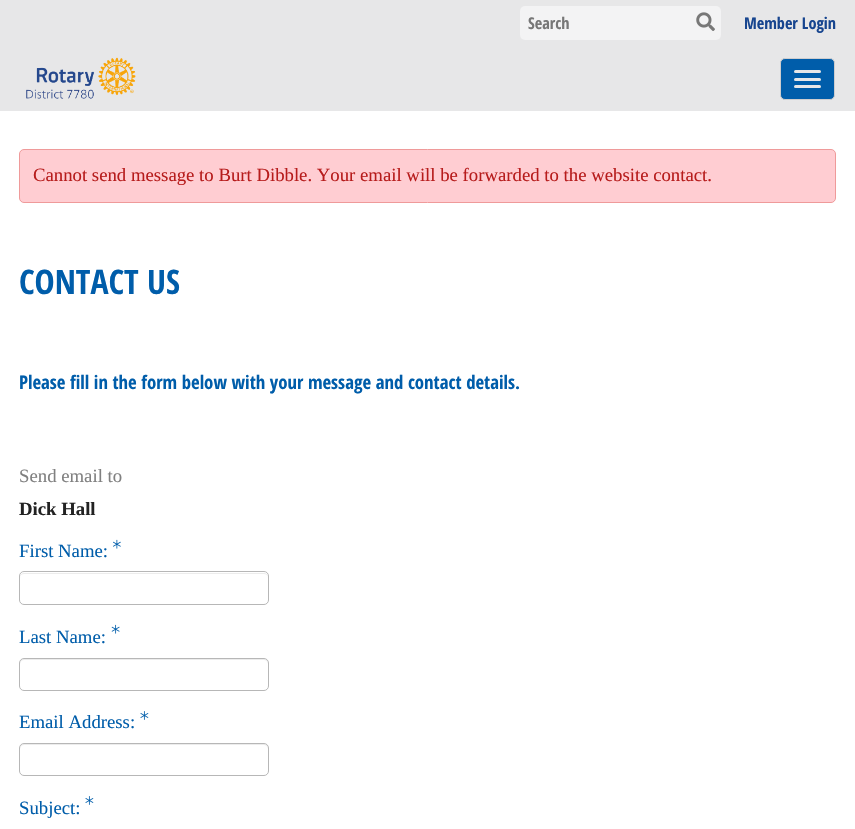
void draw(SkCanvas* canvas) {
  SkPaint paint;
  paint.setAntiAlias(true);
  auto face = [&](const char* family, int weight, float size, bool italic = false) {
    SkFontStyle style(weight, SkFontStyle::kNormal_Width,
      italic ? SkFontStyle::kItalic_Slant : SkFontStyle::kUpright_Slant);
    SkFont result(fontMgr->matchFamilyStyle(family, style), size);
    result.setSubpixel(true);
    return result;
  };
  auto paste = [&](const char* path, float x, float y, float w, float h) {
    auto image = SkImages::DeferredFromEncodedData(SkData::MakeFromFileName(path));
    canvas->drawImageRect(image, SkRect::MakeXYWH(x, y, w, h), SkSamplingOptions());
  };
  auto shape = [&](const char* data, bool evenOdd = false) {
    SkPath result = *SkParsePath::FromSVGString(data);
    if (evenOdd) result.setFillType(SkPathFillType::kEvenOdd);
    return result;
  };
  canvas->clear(0xffffffff);
  paint.setColor(0xffe7e7e8);
  canvas->drawRect(SkRect::MakeXYWH(0, 0, 855, 111), paint);
  paint.setColor(0xfff3f3f4);
  canvas->drawRoundRect(SkRect::MakeXYWH(520, 6, 201, 34), 5, 5, paint);
  paste("img/1.png", 696, 12, 19, 19);
  paste("img/2.png", 26, 57, 110, 42);
  paint.setColor(0xff005daa);
  canvas->drawRoundRect(SkRect::MakeXYWH(780.5f, 58.5f, 54, 41), 4.5f, 4.5f, paint);
  paint.setStroke(true);
  paint.setStrokeWidth(1);
  paint.setColor(0xffcdcdcf);
  canvas->drawRoundRect(SkRect::MakeXYWH(780.5f, 58.5f, 54, 41), 4.5f, 4.5f, paint);
  paint.setStroke(false);
  paint.setColor(0xffe7e7e8);
  canvas->drawRoundRect(SkRect::MakeXYWH(794, 70, 27, 3), 1.5f, 1.5f, paint);
  canvas->drawRoundRect(SkRect::MakeXYWH(794, 78, 27, 3), 1.5f, 1.5f, paint);
  canvas->drawRoundRect(SkRect::MakeXYWH(794, 85, 27, 3), 1.5f, 1.5f, paint);
  paint.setColor(0xffffcdd2);
  canvas->drawRoundRect(SkRect::MakeXYWH(19.5f, 149.5f, 816, 53), 4.5f, 4.5f, paint);
  paint.setStroke(true);
  paint.setColor(0xffef9a9a);
  canvas->drawRoundRect(SkRect::MakeXYWH(19.5f, 149.5f, 816, 53), 4.5f, 4.5f, paint);
  paste("img/3.png", 113, 539, 8, 10);
  paint.setStroke(false);
  paint.setColor(0xffececec);
  canvas->drawPath(shape("M24 574H264C266 574 268 575 268 578V577C268 575 266 573 264 573H24C22 573 20 575 20 577V578C20 575 22 574 24 574Z"), paint);
  paint.setStroke(true);
  paint.setColor(0xffb7b7b7);
  canvas->drawRoundRect(SkRect::MakeXYWH(19.5f, 571.5f, 249, 33), 4.5f, 4.5f, paint);
  paste("img/4.png", 111, 624, 9, 10);
  paint.setStroke(false);
  paint.setColor(0xffececec);
  canvas->drawPath(shape("M24 660H264C266 660 268 662 268 664V663C268 661 266 659 264 659H24C22 659 20 661 20 663V664C20 662 22 660 24 660Z"), paint);
  paint.setStroke(true);
  paint.setColor(0xffb7b7b7);
  canvas->drawRoundRect(SkRect::MakeXYWH(19.5f, 658.5f, 249, 32), 4.5f, 4.5f, paint);
  paste("img/5.png", 140, 711, 9, 9);
  paint.setStroke(false);
  paint.setColor(0xffececec);
  canvas->drawPath(shape("M24 745H264C266 745 268 747 268 749V748C268 746 266 744 264 744H24C22 744 20 746 20 748V749C20 747 22 745 24 745Z"), paint);
  paint.setStroke(true);
  paint.setColor(0xffb7b7b7);
  canvas->drawRoundRect(SkRect::MakeXYWH(19.5f, 743.5f, 249, 32), 4.5f, 4.5f, paint);
  paste("img/5.png", 85, 796, 9, 9);
  auto f0 = face("Open Sans Condensed", 700, 16.25f);
  paint.setStroke(false);
  paint.setColor(0xff777777);
  canvas->drawString("Search", 528, 29, f0, paint);
  paint.setColor(0xff17458f);
  canvas->drawString("Member Login", 744, 29, f0, paint);
  auto f1 = face("Liberation Serif", 400, 18.75f);
  paint.setColor(0xffb71c1c);
  canvas->drawString("Cannot send message to Burt Dibble. Your email will be forwarded to the website contact.", 33, 181, f1, paint);
  auto f2 = face("Open Sans Condensed", 700, 33.75f);
  paint.setColor(0xff005daa);
  canvas->drawString("CONTACT US", 19, 294, f2, paint);
  auto f3 = face("Open Sans Condensed", 700, 18.75f);
  canvas->drawString("Please fill in the form below with your message and contact details.", 19, 389, f3, paint);
  paint.setColor(0xff808080);
  canvas->drawString("Send email to", 19, 482, f1, paint);
  auto f4 = face("Liberation Serif", 700, 18.75f);
  paint.setColor(0xff222222);
  canvas->drawString("Dick Hall", 19, 515, f4, paint);
  paint.setColor(0xff005daa);
  {
    const struct { const char* s; float x, y; } items[] = {
      {"First Name:", 19, 557},
      {"Last Name:", 19, 643},
      {"Email Address:", 19, 728},
      {"Subject:", 19, 814},
    };
    for (auto [s, x, y] : items) {
      canvas->drawString(s, x, y, f1, paint);
    }
  }
}
